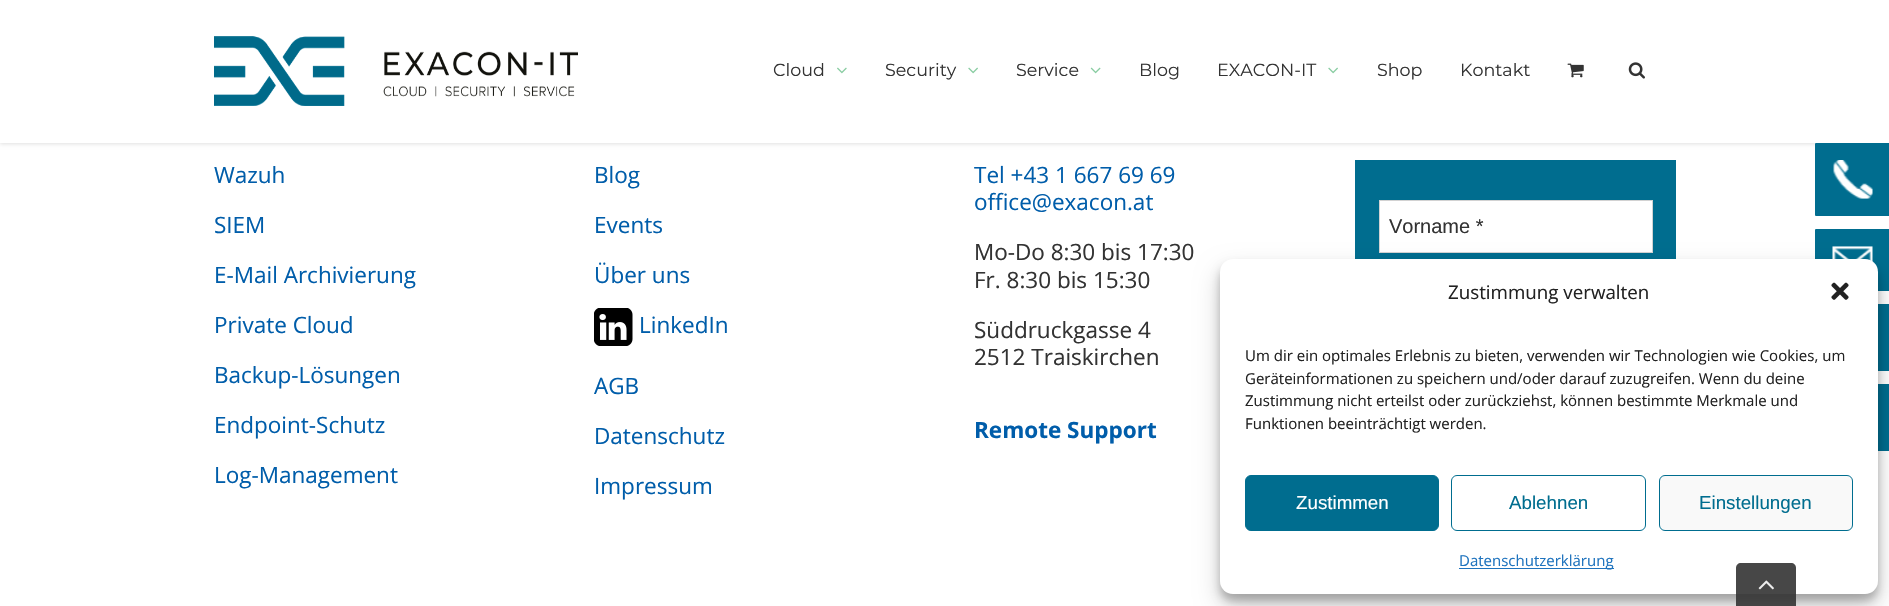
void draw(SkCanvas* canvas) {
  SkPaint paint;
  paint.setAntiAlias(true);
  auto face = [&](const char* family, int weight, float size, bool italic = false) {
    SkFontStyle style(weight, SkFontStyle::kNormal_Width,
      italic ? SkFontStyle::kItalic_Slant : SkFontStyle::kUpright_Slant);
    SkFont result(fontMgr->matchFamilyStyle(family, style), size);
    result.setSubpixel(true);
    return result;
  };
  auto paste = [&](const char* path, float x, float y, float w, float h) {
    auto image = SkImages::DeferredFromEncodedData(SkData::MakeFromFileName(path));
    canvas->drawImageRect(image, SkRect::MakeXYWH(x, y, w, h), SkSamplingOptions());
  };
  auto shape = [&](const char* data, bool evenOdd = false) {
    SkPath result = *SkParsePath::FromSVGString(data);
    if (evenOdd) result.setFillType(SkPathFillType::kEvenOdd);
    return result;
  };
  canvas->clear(0xffffffff);
  canvas->save();
  canvas->clipPath(shape("M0 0H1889V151H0ZM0 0H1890V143H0Z", true), true);
  paint.setColor(0x1f000000);
  paint.setMaskFilter(SkMaskFilter::MakeBlur(kNormal_SkBlurStyle, 2));
  canvas->drawRect(SkRect::MakeXYWH(0, 1, 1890, 143), paint);
  paint.setMaskFilter(nullptr);
  canvas->restore();
  paint.setColor(0xf7ffffff);
  canvas->drawRect(SkRect::MakeXYWH(0, 142, 1889, 1), paint);
  paste("img/1.png", 214, 36, 364, 70);
  paste("img/2.png", 837, 67, 10, 7);
  paste("img/3.png", 968, 67, 10, 7);
  paste("img/4.png", 1090, 67, 11, 7);
  paste("img/3.png", 1328, 67, 10, 7);
  paste("img/5.png", 1567, 63, 17, 15);
  paste("img/6.png", 1628, 62, 17, 17);
  paste("img/7.png", 594, 308, 39, 38);
  paint.setColor(0xff006d8f);
  canvas->drawRect(SkRect::MakeXYWH(1355, 160, 321, 99), paint);
  paint.setColor(0xffffffff);
  canvas->drawRect(SkRect::MakeXYWH(1379.5f, 200.5f, 273, 52), paint);
  paint.setStroke(true);
  paint.setStrokeWidth(1);
  paint.setColor(0xffd2d2d2);
  canvas->drawRect(SkRect::MakeXYWH(1379.5f, 200.5f, 273, 52), paint);
  paint.setStroke(false);
  paint.setColor(0xff006d8f);
  canvas->drawRoundRect(SkRect::MakeXYWH(1815, 229, 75, 62), 1, 1, paint);
  paste("img/10.png", 1832, 246, 41, 16);
  canvas->drawRect(SkRect::MakeXYWH(1878, 304, 11, 67), paint);
  canvas->drawRect(SkRect::MakeXYWH(1878, 384, 11, 67), paint);
  paint.setColor(0x3b000000);
  paint.setMaskFilter(SkMaskFilter::MakeBlur(kNormal_SkBlurStyle, 4));
  canvas->drawRoundRect(SkRect::MakeXYWH(1220, 266, 658, 335), 13, 13, paint);
  paint.setMaskFilter(nullptr);
  paint.setColor(0x30000000);
  paint.setMaskFilter(SkMaskFilter::MakeBlur(kNormal_SkBlurStyle, 12.5f));
  canvas->drawRoundRect(SkRect::MakeXYWH(1220, 271, 658, 335), 13, 13, paint);
  paint.setMaskFilter(nullptr);
  paint.setColor(0xffffffff);
  canvas->drawRoundRect(SkRect::MakeXYWH(1220, 259, 658, 335), 13, 13, paint);
  paste("img/8.png", 1831, 282, 18, 18);
  paint.setColor(0xff006d8f);
  canvas->drawRoundRect(SkRect::MakeXYWH(1245.5f, 475.5f, 193, 55), 5.5f, 5.5f, paint);
  paint.setStroke(true);
  canvas->drawRoundRect(SkRect::MakeXYWH(1245.5f, 475.5f, 193, 55), 5.5f, 5.5f, paint);
  canvas->drawRoundRect(SkRect::MakeXYWH(1451.5f, 475.5f, 194, 55), 5.5f, 5.5f, paint);
  paint.setStroke(false);
  paint.setColor(0xfff9f9f9);
  canvas->drawRoundRect(SkRect::MakeXYWH(1659.5f, 475.5f, 193, 55), 5.5f, 5.5f, paint);
  paint.setStroke(true);
  paint.setColor(0xff006d8f);
  canvas->drawRoundRect(SkRect::MakeXYWH(1659.5f, 475.5f, 193, 55), 5.5f, 5.5f, paint);
  paint.setStroke(false);
  paint.setColor(0xff1e73be);
  canvas->drawRect(SkRect::MakeXYWH(1459, 568, 155, 1), paint);
  paint.setColor(0xff006d8f);
  canvas->drawRoundRect(SkRect::MakeXYWH(1815, 143, 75, 73), 1, 1, paint);
  paste("img/9.png", 1833, 160, 40, 39);
  paint.setColor(0xe6333333);
  canvas->drawPath(shape("M1741 563H1791C1794 563 1796 565 1796 568V606H1736V568C1736 565 1738 563 1741 563Z"), paint);
  paste("img/11.png", 1758, 580, 16, 10);
  auto f0 = face("Montserrat", 400, 17.5f);
  paint.setColor(0xff333333);
  {
    const struct { const char* s; float x, y; } items[] = {
      {"Cloud", 773, 76},
      {"Security", 885, 76},
      {"Service", 1016, 76},
      {"Blog", 1139, 76},
      {"EXACON-IT", 1217, 76},
      {"Shop", 1377, 76},
      {"Kontakt", 1460, 76},
    };
    for (auto [s, x, y] : items) {
      canvas->drawString(s, x, y, f0, paint);
    }
  }
  auto f1 = face("Open Sans", 400, 22.5f);
  paint.setColor(0xff005daa);
  {
    const struct { const char* s; float x, y; } items[] = {
      {"Wazuh", 214, 183},
      {"SIEM", 214, 233},
      {"E-Mail Archivierung", 214, 283},
      {"Private Cloud", 214, 333},
      {"Backup-Lösungen", 214, 383},
      {"Endpoint-Schutz", 214, 433},
      {"Log-Management", 214, 483},
      {"Blog", 594, 183},
      {"Events", 594, 233},
      {"Über uns", 594, 283},
      {"LinkedIn", 639, 333},
      {"AGB", 594, 394},
      {"Datenschutz", 594, 444},
      {"Impressum", 594, 494},
      {"Tel +43 1 667 69 69", 974, 183},
      {"office@exacon.at", 974, 210},
    };
    for (auto [s, x, y] : items) {
      canvas->drawString(s, x, y, f1, paint);
    }
  }
  paint.setColor(0xff333333);
  {
    const struct { const char* s; float x, y; } items[] = {
      {"Mo-Do 8:30 bis 17:30", 974, 260},
      {"Fr. 8:30 bis 15:30", 974, 288},
      {"Süddruckgasse 4", 974, 338},
      {"2512 Traiskirchen", 974, 365},
    };
    for (auto [s, x, y] : items) {
      canvas->drawString(s, x, y, f1, paint);
    }
  }
  auto f2 = face("Open Sans", 700, 22.5f);
  paint.setColor(0xff005daa);
  canvas->drawString("Remote Support", 974, 438, f2, paint);
  auto f3 = face("Liberation Sans", 400, 20);
  paint.setColor(0xff333333);
  canvas->drawString("Vorname *", 1389, 233, f3, paint);
  auto f4 = face("Open Sans", 400, 18.75f);
  paint.setColor(0xff222222);
  canvas->drawString("Zustimmung verwalten", 1448, 299, f4, paint);
  auto f5 = face("Open Sans", 400, 15);
  {
    const struct { const char* s; float x, y; } items[] = {
      {"Um dir ein optimales Erlebnis zu bieten, verwenden wir Technologien wie Cookies, um", 1245, 361},
      {"Geräteinformationen zu speichern und/oder darauf zuzugreifen. Wenn du deine", 1245, 384},
      {"Zustimmung nicht erteilst oder zurückziehst, können bestimmte Merkmale und", 1245, 406},
      {"Funktionen beeinträchtigt werden.", 1245, 429},
    };
    for (auto [s, x, y] : items) {
      canvas->drawString(s, x, y, f5, paint);
    }
  }
  auto f6 = face("Liberation Sans", 400, 18.75f);
  paint.setColor(0xffffffff);
  canvas->drawString("Zustimmen", 1296, 509, f6, paint);
  paint.setColor(0xff006d8f);
  canvas->drawString("Ablehnen", 1509, 509, f6, paint);
  canvas->drawString("Einstellungen", 1699, 509, f6, paint);
  paint.setColor(0xff1e73be);
  canvas->drawString("Datenschutzerklärung", 1459, 566, f5, paint);
}
